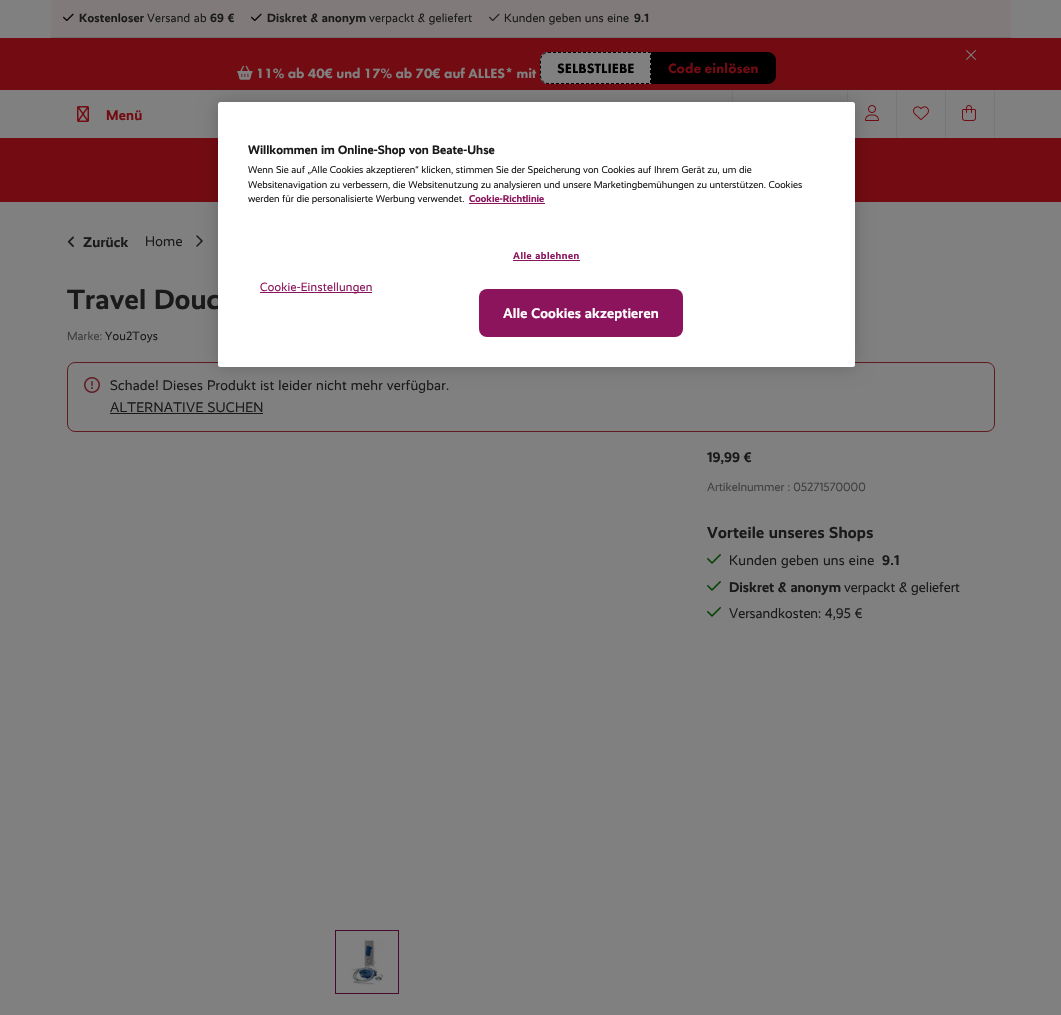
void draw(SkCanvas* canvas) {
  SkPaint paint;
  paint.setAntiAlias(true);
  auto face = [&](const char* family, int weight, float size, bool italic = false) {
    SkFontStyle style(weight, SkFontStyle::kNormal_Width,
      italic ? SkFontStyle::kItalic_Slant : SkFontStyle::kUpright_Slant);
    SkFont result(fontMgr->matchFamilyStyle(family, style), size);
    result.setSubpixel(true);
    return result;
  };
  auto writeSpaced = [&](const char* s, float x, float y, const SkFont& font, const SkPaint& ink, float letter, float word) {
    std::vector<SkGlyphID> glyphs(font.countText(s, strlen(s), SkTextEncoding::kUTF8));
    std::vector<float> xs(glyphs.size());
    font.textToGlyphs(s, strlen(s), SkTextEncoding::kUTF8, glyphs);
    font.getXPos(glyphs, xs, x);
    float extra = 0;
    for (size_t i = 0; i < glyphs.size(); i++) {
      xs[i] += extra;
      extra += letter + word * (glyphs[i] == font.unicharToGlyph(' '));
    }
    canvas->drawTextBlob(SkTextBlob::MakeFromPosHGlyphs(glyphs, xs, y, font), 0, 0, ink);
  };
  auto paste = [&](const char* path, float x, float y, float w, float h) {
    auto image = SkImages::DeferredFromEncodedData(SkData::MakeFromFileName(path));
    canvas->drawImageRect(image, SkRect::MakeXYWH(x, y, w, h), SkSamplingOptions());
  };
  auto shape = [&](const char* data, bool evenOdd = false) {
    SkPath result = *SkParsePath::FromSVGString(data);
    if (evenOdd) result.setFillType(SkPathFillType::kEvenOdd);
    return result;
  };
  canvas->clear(0xff808080);
  paint.setColor(0xff807a7a);
  canvas->drawRect(SkRect::MakeXYWH(51, 0, 960, 37), paint);
  paint.setColor(0xff6d6d6d);
  canvas->drawRect(SkRect::MakeXYWH(51, 37, 960, 1), paint);
  paste("img/1.png", 63, 13, 11, 8);
  paste("img/2.png", 63, 13, 11, 8);
  paste("img/1.png", 251, 13, 11, 8);
  paste("img/2.png", 251, 13, 11, 8);
  paste("img/1.png", 489, 13, 11, 8);
  paint.setColor(0xff720c12);
  canvas->drawRect(SkRect::MakeXYWH(0, 38, 1061, 52), paint);
  paste("img/3.png", 966, 50, 10, 10);
  paste("img/4.png", 237, 65, 16, 15);
  paint.setColor(0xff808080);
  canvas->drawPath(shape("M548 52H651V84H548C543.5 84 540 80.5 540 76V60C540 55.5 543.5 52 548 52Z"), paint);
  paint.setStroke(true);
  paint.setStrokeWidth(1);
  paint.setColor(0xff000000);
  paint.setPathEffect(SkDashPathEffect::Make({{3, 2}}, 0));
  canvas->drawPath(shape("M548 52.5H650.5V83.5H548C544 83.5 540.5 80 540.5 76V60C540.5 56 544 52.5 548 52.5Z"), paint);
  paint.setPathEffect(nullptr);
  paint.setStroke(false);
  canvas->drawPath(shape("M651.5 52.5H768C772 52.5 775.5 56 775.5 60V76C775.5 80 772 83.5 768 83.5H651.5Z"), paint);
  paint.setStroke(true);
  canvas->drawPath(shape("M651.5 52.5H768C772 52.5 775.5 56 775.5 60V76C775.5 80 772 83.5 768 83.5H651.5Z"), paint);
  paste("img/5.png", 77, 106, 12, 16);
  paint.setStroke(false);
  paint.setColor(0x12000000);
  canvas->drawRect(SkRect::MakeXYWH(732, 91, 1, 11), paint);
  paint.setColor(0xff777777);
  canvas->drawRect(SkRect::MakeXYWH(847, 90, 1, 12), paint);
  paste("img/6.png", 865, 105, 14, 16);
  canvas->drawRect(SkRect::MakeXYWH(896, 90, 1, 48), paint);
  paste("img/7.png", 913, 106, 16, 14);
  canvas->drawRect(SkRect::MakeXYWH(994, 90, 1, 48), paint);
  canvas->drawRect(SkRect::MakeXYWH(945, 90, 1, 48), paint);
  paste("img/8.png", 962, 105, 14, 16);
  paint.setColor(0xff720c12);
  canvas->drawRect(SkRect::MakeXYWH(0, 138, 1061, 64), paint);
  paste("img/9.png", 67, 236, 7, 11);
  paste("img/10.png", 196, 235, 7, 12);
  paint.setStroke(true);
  paint.setColor(0xff601b22);
  canvas->drawRoundRect(SkRect::MakeXYWH(67.5f, 362.5f, 927, 69), 7.5f, 7.5f, paint);
  paint.setStroke(false);
  paint.setColor(0x33000000);
  paint.setMaskFilter(SkMaskFilter::MakeBlur(kNormal_SkBlurStyle, 9));
  canvas->drawRoundRect(SkRect::MakeXYWH(218, 102, 637, 265), 2.5f, 2.5f, paint);
  paint.setMaskFilter(nullptr);
  paste("img/11.png", 84, 377, 16, 16);
  paint.setColor(0xff1a1a1a);
  canvas->drawRect(SkRect::MakeXYWH(110, 413, 153, 1), paint);
  paste("img/12.png", 707, 554, 14, 10);
  paste("img/12.png", 707, 581, 14, 10);
  paste("img/12.png", 707, 607, 14, 10);
  paint.setStroke(true);
  paint.setColor(0xff460a2f);
  canvas->drawRect(SkRect::MakeXYWH(335.5f, 930.5f, 63, 63), paint);
  paste("img/13.png", 351, 939, 32, 46);
  auto f0 = face("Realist", 700, 12);
  paint.setStroke(false);
  paint.setColor(0xff1a1a1a);
  writeSpaced("Kostenloser", 79, 22, f0, paint, 0.2f, 0);
  auto f1 = face("Realist", 400, 12);
  writeSpaced("Versand ab", 147, 22, f1, paint, 0.2f, 0);
  writeSpaced("69 €", 210, 22, f0, paint, 0.2f, 0);
  writeSpaced("Diskret & anonym", 267, 22, f0, paint, 0.2f, 0);
  writeSpaced("verpackt & geliefert", 369, 22, f1, paint, 0.2f, 0);
  writeSpaced("Kunden geben uns eine", 504, 22, f1, paint, 0.2f, 0);
  writeSpaced("9.1", 634, 22, f0, paint, 0.2f, 0);
  auto f2 = face("Futura PT", 900, 14);
  paint.setColor(0xff808080);
  canvas->drawString("11% ab 40€ und 17% ab 70€ auf ALLES* mit", 256, 78, f2, paint);
  paint.setColor(0xff000000);
  writeSpaced("SELBSTLIEBE", 557, 73, f2, paint, 0.1f, 0);
  paint.setColor(0xff720c12);
  writeSpaced("Code einlösen", 668, 73, f2, paint, 0.1f, 0);
  auto f3 = face("Realist", 700, 14);
  writeSpaced("Menü", 106, 120, f3, paint, 0.2f, 0);
  paint.setColor(0xff1a1a1a);
  writeSpaced("Zurück", 83, 247, f3, paint, 0.2f, 0);
  auto f4 = face("Realist", 400, 14);
  writeSpaced("Home", 145, 246, f4, paint, 0.2f, 0);
  auto f5 = face("Realist", 700, 28);
  writeSpaced("Travel Douc", 67, 309, f5, paint, 0.2f, 0);
  paint.setColor(0xffffffff);
  canvas->drawRoundRect(SkRect::MakeXYWH(218, 102, 637, 265), 2.5f, 2.5f, paint);
  paint.setColor(0xff8b145d);
  canvas->drawRoundRect(SkRect::MakeXYWH(479, 289, 204, 48), 8, 8, paint);
  paint.setColor(0xffffffff);
  writeSpaced("Alle Cookies akzeptieren", 503, 318, f3, paint, 0.1f, 0);
  auto f6 = face("Realist", 700, 9.95f);
  paint.setColor(0xff8b145d);
  writeSpaced("Alle ablehnen", 513, 259, f6, paint, 0.5f, 0);
  canvas->drawRect(SkRect::MakeXYWH(513, 260, 67, 1), paint);
  canvas->drawRect(SkRect::MakeXYWH(260, 292, 112, 1), paint);
  writeSpaced("Cookie-Einstellungen", 260, 291, f1, paint, 0.2f, 0);
  canvas->drawString("Cookie-Richtlinie", 469, 202, f6, paint);
  canvas->drawRect(SkRect::MakeXYWH(469, 203, 76, 1), paint);
  auto f7 = face("Realist", 400, 9.95f);
  paint.setColor(0xff1a1a1a);
  {
    const struct { const char* s; float x, y; } items[] = {
      {"werden für die personalisierte Werbung verwendet.", 248, 202},
      {"Websitenavigation zu verbessern, die Websitenutzung zu analysieren und unsere Marketingbemühungen zu unterstützen. Cookies", 248, 188},
      {"Wenn Sie auf „Alle Cookies akzeptieren“ klicken, stimmen Sie der Speicherung von Cookies auf Ihrem Gerät zu, um die", 248, 173},
    };
    for (auto [s, x, y] : items) {
      canvas->drawString(s, x, y, f7, paint);
    }
  }
  auto f8 = face("Realist", 700, 12.25f);
  canvas->drawString("Willkommen im Online-Shop von Beate-Uhse", 248, 154, f8, paint);
  paint.setColor(0xff404040);
  canvas->drawString("Marke:", 67, 340, f1, paint);
  paint.setColor(0xff1a1a1a);
  writeSpaced("You2Toys", 105, 340, f1, paint, 0.2f, 0);
  writeSpaced("Schade! Dieses Produkt ist leider nicht mehr verfügbar.", 110, 390, f4, paint, 0.2f, 0);
  writeSpaced("ALTERNATIVE SUCHEN", 110, 412, f4, paint, 0.25f, 0);
  canvas->drawString("19,99 €", 707, 462, f3, paint);
  paint.setColor(0xff404040);
  canvas->drawString("Artikelnummer : 05271570000", 707, 491, f1, paint);
  auto f9 = face("Realist", 700, 16);
  paint.setColor(0xff1a1a1a);
  writeSpaced("Vorteile unseres Shops", 707, 538, f9, paint, 0.2f, 0);
  writeSpaced("Kunden geben uns eine", 729, 565, f4, paint, 0.2f, 0);
  writeSpaced("9.1", 882, 565, f3, paint, 0.2f, 0);
  canvas->drawString("Diskret & anonym", 729, 592, f3, paint);
  canvas->drawString("verpackt & geliefert", 844, 592, f4, paint);
  canvas->drawString("Versandkosten: 4,95 €", 729, 618, f4, paint);
}
